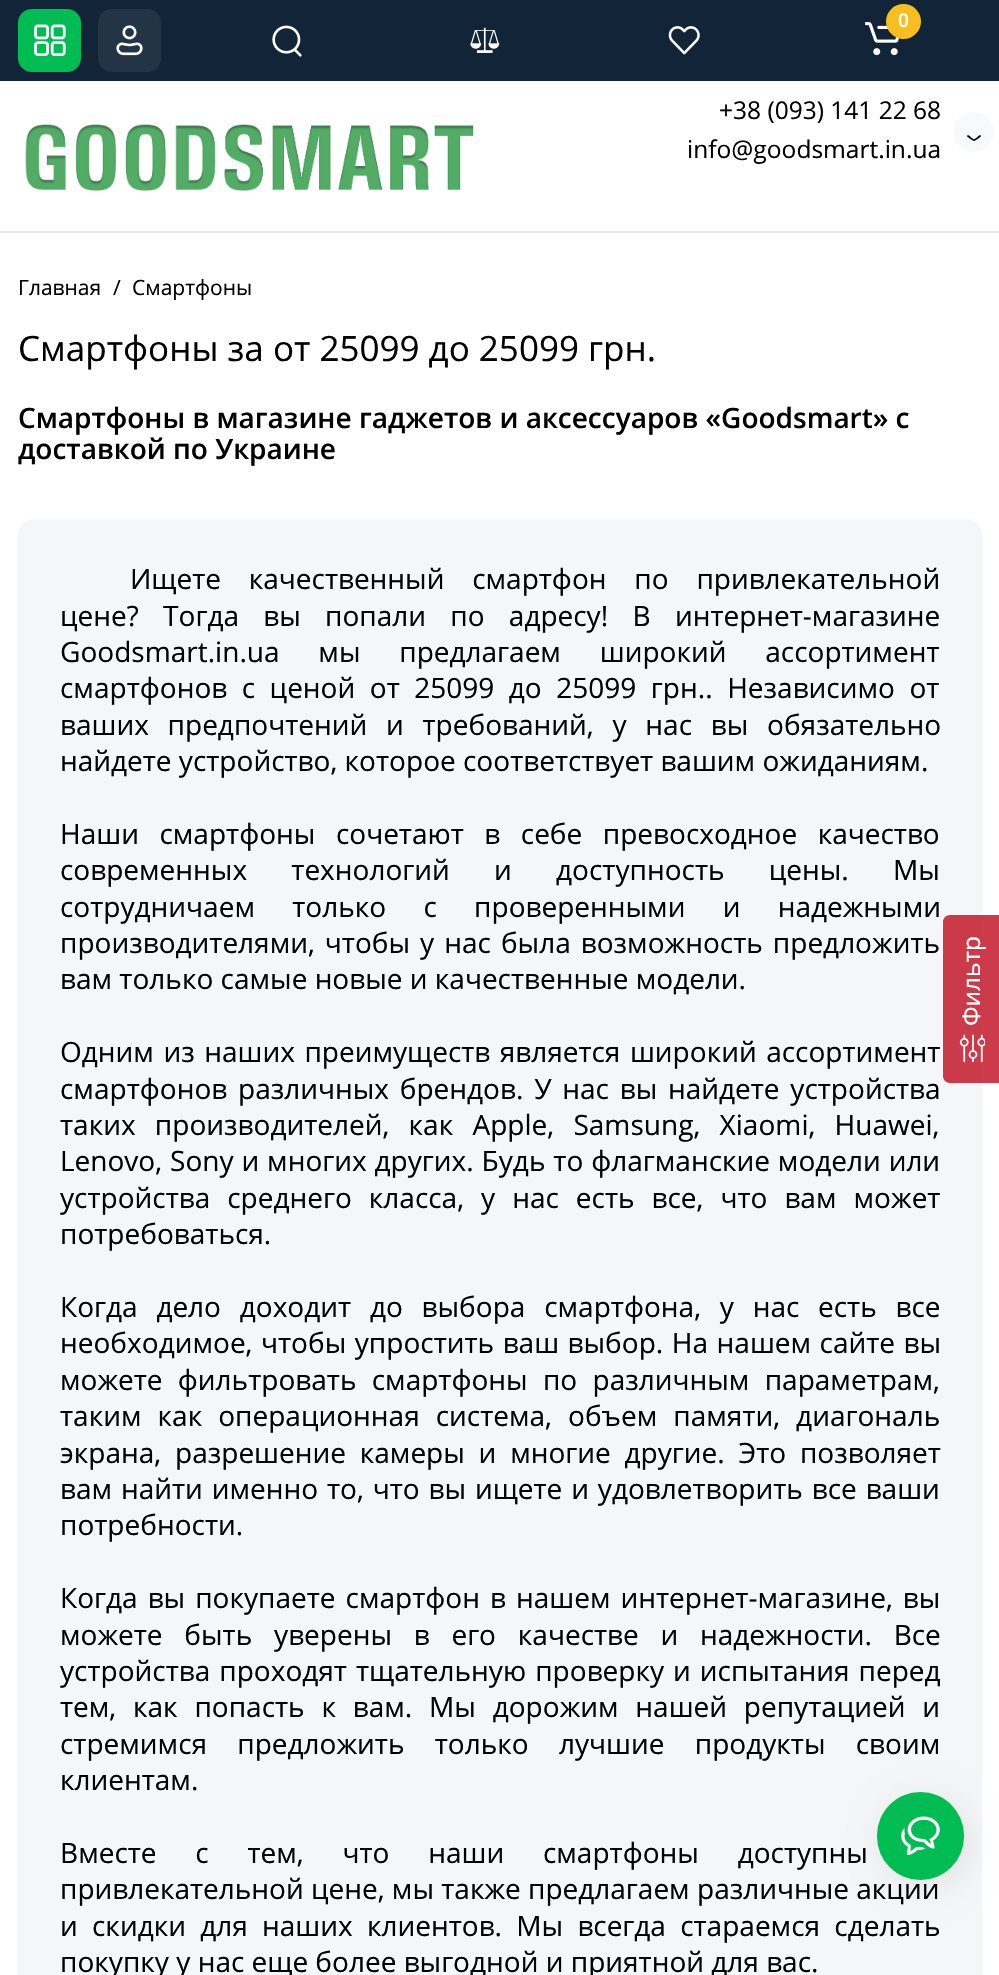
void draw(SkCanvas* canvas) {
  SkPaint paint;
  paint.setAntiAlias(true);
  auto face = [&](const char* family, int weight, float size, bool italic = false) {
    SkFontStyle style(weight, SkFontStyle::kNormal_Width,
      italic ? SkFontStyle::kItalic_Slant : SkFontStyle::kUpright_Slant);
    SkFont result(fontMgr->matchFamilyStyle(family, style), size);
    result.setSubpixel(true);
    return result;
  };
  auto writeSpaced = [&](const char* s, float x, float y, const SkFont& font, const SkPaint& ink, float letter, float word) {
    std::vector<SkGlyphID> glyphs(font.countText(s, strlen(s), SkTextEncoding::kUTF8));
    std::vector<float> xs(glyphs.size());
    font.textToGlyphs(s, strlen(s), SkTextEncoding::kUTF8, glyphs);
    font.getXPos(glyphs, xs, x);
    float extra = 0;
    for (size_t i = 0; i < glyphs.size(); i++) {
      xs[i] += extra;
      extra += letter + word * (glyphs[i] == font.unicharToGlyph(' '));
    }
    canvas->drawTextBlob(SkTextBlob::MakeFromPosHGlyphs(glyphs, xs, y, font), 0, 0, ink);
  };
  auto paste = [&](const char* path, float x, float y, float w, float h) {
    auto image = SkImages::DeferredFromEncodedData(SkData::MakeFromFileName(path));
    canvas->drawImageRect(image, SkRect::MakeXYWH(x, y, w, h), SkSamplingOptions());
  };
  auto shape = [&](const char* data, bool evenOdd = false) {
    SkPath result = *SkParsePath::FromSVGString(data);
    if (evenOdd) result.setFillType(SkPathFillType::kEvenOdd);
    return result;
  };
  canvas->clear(0xffffffff);
  paint.setColor(0xff122538);
  canvas->drawRect(SkRect::MakeXYWH(0, 0, 999, 81), paint);
  paint.setColor(0xff00bc52);
  canvas->drawRoundRect(SkRect::MakeXYWH(18, 9, 63, 63), 14, 14, paint);
  paste("img/1.png", 34, 24, 32, 32);
  paint.setColor(0xff223446);
  canvas->drawRoundRect(SkRect::MakeXYWH(98, 9, 63, 63), 14, 14, paint);
  paste("img/2.png", 116, 25, 27, 31);
  paste("img/3.png", 865, 22, 34, 34);
  paint.setColor(0xfff6be21);
  canvas->drawCircle(903.5f, 21.5f, 17.5f, paint);
  paste("img/4.png", 272, 25, 30, 32);
  paste("img/5.png", 470, 27, 30, 26);
  paste("img/6.png", 668, 26, 32, 29);
  paint.setColor(0xffe7e7e7);
  canvas->drawRect(SkRect::MakeXYWH(0, 231, 999, 2), paint);
  paste("img/7.png", 25, 124, 449, 67);
  paint.setColor(0xfff8f9fa);
  canvas->drawCircle(974, 132, 20, paint);
  paint.setStroke(true);
  paint.setStrokeWidth(1.8f);
  paint.setStrokeCap(SkPaint::kRound_Cap);
  paint.setColor(0xff000000);
  canvas->drawPath(shape("M980 136C973 141.5 975 141.5 968 136"), paint);
  canvas->save();
  canvas->clipRect(SkRect::MakeXYWH(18, 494, 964, 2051));
  paint.setStroke(false);
  paint.setColor(0x1f000000);
  paint.setMaskFilter(SkMaskFilter::MakeBlur(kNormal_SkBlurStyle, 2.5f));
  canvas->drawRoundRect(SkRect::MakeXYWH(18, 522, 964, 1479), 18, 18, paint);
  paint.setMaskFilter(nullptr);
  canvas->restore();
  paint.setColor(0xfff5f6f7);
  canvas->drawRoundRect(SkRect::MakeXYWH(18, 520, 964, 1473), 18, 18, paint);
  paint.setColor(0xd9c31929);
  canvas->drawPath(shape("M943 1076V922C943 918 946 915 950 915H999V1083H950C946 1083 943 1080 943 1076Z"), paint);
  paste("img/8.png", 959, 1034, 27, 29);
  paint.setColor(0x14000000);
  paint.setMaskFilter(SkMaskFilter::MakeBlur(kNormal_SkBlurStyle, 16));
  canvas->drawRoundRect(SkRect::MakeXYWH(882, 1799, 88, 88), 44, 44, paint);
  paint.setMaskFilter(nullptr);
  auto f0 = face("Open Sans", 600, 19);
  paint.setColor(0xffffffff);
  canvas->drawString("0", 898, 27, f0, paint);
  auto f1 = face("Open Sans", 400, 24.5f);
  paint.setColor(0xff000000);
  canvas->drawString("+38 (093) 141 22 68", 719, 119, f1, paint);
  canvas->drawString("info@goodsmart.in.ua", 687, 158, f1, paint);
  auto f2 = face("Open Sans", 400, 21);
  {
    const struct { const char* s; float x, y; } items[] = {
      {"Главная", 18, 295},
      {"/", 113, 295},
      {"Cмартфоны", 132, 295},
    };
    for (auto [s, x, y] : items) {
      canvas->drawString(s, x, y, f2, paint);
    }
  }
  auto f3 = face("Open Sans", 400, 35);
  canvas->drawString("Смартфоны за от 25099 до 25099 грн.", 18, 361, f3, paint);
  auto f4 = face("Open Sans", 600, 28);
  canvas->drawString("Cмартфоны в магазине гаджетов и аксессуаров «Goodsmart» с", 18, 428, f4, paint);
  canvas->drawString("доставкой по Украине", 18, 459, f4, paint);
  auto f5 = face("Open Sans", 400, 28);
  writeSpaced("Ищете качественный смартфон по привлекательной", 130, 589, f5, paint, 0, 20.5f);
  writeSpaced("цене? Тогда вы попали по адресу! В интернет-магазине", 60, 626, f5, paint, 0, 17);
  writeSpaced("Goodsmart.in.ua мы предлагаем широкий ассортимент", 60, 662, f5, paint, 0, 31.5f);
  writeSpaced("смартфонов с ценой от 25099 до 25099 грн.. Независимо от", 60, 698, f5, paint, 0, 7.25f);
  writeSpaced("ваших предпочтений и требований, у нас вы обязательно", 60, 735, f5, paint, 0, 11.5f);
  canvas->drawString("найдете устройство, которое соответствует вашим ожиданиям.", 60, 771, f5, paint);
  writeSpaced("Наши смартфоны сочетают в себе превосходное качество", 60, 844, f5, paint, 0, 13.25f);
  writeSpaced("современных технологий и доступность цены. Мы", 60, 880, f5, paint, 0, 37);
  writeSpaced("сотрудничаем только с проверенными и надежными", 60, 917, f5, paint, 0, 30);
  writeSpaced("производителями, чтобы у нас была возможность предложить", 60, 953, f5, paint, 0, 2.75f);
  canvas->drawString("вам только самые новые и качественные модели.", 60, 989, f5, paint);
  writeSpaced("Одним из наших преимуществ является широкий ассортимент", 60, 1062, f5, paint, 0, 2.25f);
  writeSpaced("смартфонов различных брендов. У нас вы найдете устройства", 60, 1099, f5, paint, 0, 3.5f);
  writeSpaced("таких производителей, как Apple, Samsung, Xiaomi, Huawei,", 60, 1135, f5, paint, 0, 12);
  writeSpaced("Lenovo, Sony и многих других. Будь то флагманские модели или", 60, 1171, f5, paint, 0, 0.6f);
  writeSpaced("устройства среднего класса, у нас есть все, что вам может", 60, 1208, f5, paint, 0, 9.75f);
  canvas->drawString("потребоваться.", 60, 1244, f5, paint);
  writeSpaced("Когда дело доходит до выбора смартфона, у нас есть все", 60, 1317, f5, paint, 0, 11.5f);
  writeSpaced("необходимое, чтобы упростить ваш выбор. На нашем сайте вы", 60, 1353, f5, paint, 0, 1.25f);
  writeSpaced("можете фильтровать смартфоны по различным параметрам,", 60, 1390, f5, paint, 0, 8);
  writeSpaced("таким как операционная система, объем памяти, диагональ", 60, 1426, f5, paint, 0, 8.75f);
  writeSpaced("экрана, разрешение камеры и многие другие. Это позволяет", 60, 1463, f5, paint, 0, 6.5f);
  writeSpaced("вам найти именно то, что вы ищете и удовлетворить все ваши", 60, 1499, f5, paint, 0, 1.6f);
  canvas->drawString("потребности.", 60, 1535, f5, paint);
  writeSpaced("Когда вы покупаете смартфон в нашем интернет-магазине, вы", 60, 1608, f5, paint, 0, 2.75f);
  writeSpaced("можете быть уверены в его качестве и надежности. Все", 60, 1645, f5, paint, 0, 14.5f);
  writeSpaced("устройства проходят тщательную проверку и испытания перед", 60, 1681, f5, paint, 0, 1.75f);
  writeSpaced("тем, как попасть к вам. Мы дорожим нашей репутацией и", 60, 1717, f5, paint, 0, 9.5f);
  writeSpaced("стремимся предложить только лучшие продукты своим", 60, 1754, f5, paint, 0, 23);
  canvas->drawString("клиентам.", 60, 1790, f5, paint);
  writeSpaced("Вместе с тем, что наши смартфоны доступны", 60, 1863, f5, paint, 0, 31.5f);
  canvas->drawString("привлекательной цене, мы также предлагаем различные акции", 60, 1899, f5, paint);
  writeSpaced("и скидки для наших клиентов. Мы всегда стараемся сделать", 60, 1936, f5, paint, 0, 7);
  canvas->drawString("покупку у нас еще более выгодной и приятной для вас.", 60, 1972, f5, paint);
  paint.setColor(0xffffffff);
  canvas->save();
  canvas->rotate(-90, 980, 1026);
  canvas->drawString("Фильтр", 980, 1026, f1, paint);
  canvas->restore();
  paint.setColor(0xff00bc52);
  canvas->drawRoundRect(SkRect::MakeXYWH(877, 1792, 87, 88), 43.5f, 43.5f, paint);
  paste("img/9.png", 901, 1816, 39, 39);
}
